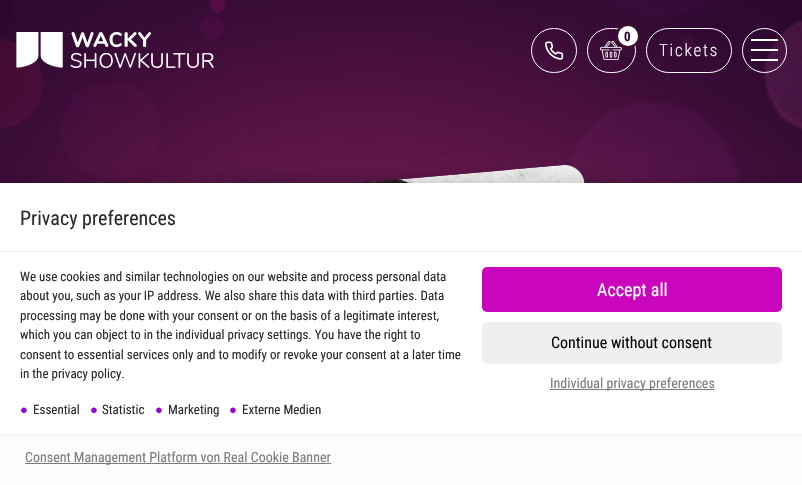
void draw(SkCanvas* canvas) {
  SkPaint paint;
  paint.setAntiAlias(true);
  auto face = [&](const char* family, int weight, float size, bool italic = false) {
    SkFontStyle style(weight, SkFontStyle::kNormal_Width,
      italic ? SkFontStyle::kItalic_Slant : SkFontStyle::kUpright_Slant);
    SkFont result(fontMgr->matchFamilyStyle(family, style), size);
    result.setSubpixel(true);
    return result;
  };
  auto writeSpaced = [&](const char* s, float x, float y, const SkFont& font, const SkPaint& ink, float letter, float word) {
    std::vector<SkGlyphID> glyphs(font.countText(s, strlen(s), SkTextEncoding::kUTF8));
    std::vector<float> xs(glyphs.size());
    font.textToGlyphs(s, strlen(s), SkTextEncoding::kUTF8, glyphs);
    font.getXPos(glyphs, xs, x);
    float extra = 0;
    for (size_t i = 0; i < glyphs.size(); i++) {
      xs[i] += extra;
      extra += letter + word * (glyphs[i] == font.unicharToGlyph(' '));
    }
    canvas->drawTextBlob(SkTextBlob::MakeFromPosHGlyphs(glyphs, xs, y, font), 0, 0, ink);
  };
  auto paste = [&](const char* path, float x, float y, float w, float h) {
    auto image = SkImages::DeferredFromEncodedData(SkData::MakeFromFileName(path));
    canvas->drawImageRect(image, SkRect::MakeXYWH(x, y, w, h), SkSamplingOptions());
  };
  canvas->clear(0xffffffff);
  paste("img/1.png", 0, 0, 802, 183);
  paint.setColor(0x611b1b1f);
  paint.setMaskFilter(SkMaskFilter::MakeBlur(kNormal_SkBlurStyle, 12));
  canvas->drawRoundRect(SkRect::MakeXYWH(207, 186, 400, 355), 20, 20, paint);
  paint.setMaskFilter(nullptr);
  paste("img/2.png", 359, 165, 226, 18);
  paste("img/3.png", 16, 32, 198, 36);
  paint.setStroke(true);
  paint.setStrokeWidth(1);
  paint.setColor(0xffffffff);
  canvas->drawRoundRect(SkRect::MakeXYWH(531.5f, 28.5f, 45, 44), 22, 22, paint);
  paste("img/4.png", 544, 41, 20, 19);
  canvas->drawRoundRect(SkRect::MakeXYWH(587.5f, 28.5f, 48, 44), 22, 22, paint);
  paste("img/5.png", 600, 40, 22, 20);
  paint.setStrokeWidth(2);
  paint.setColor(0xff381130);
  canvas->drawCircle(628, 36, 11, paint);
  paint.setStroke(false);
  paint.setColor(0xffffffff);
  canvas->drawCircle(628, 36, 10, paint);
  paint.setStroke(true);
  paint.setStrokeWidth(1);
  canvas->drawRoundRect(SkRect::MakeXYWH(646.5f, 28.5f, 85, 44), 22, 22, paint);
  canvas->drawCircle(764.5f, 50.5f, 22, paint);
  paint.setStroke(false);
  {
    const struct { float x, y, w, h; SkColor color; } items[] = {
      {751, 39, 27, 2, 0xffffffff},
      {751, 49, 27, 2, 0xffffffff},
      {751, 59, 27, 2, 0xffffffff},
    };
    for (auto [x, y, w, h, color] : items) {
      paint.setColor(color);
      canvas->drawRect(SkRect::MakeXYWH(x, y, w, h), paint);
    }
  }
  paint.setColor(0x33000000);
  paint.setMaskFilter(SkMaskFilter::MakeBlur(kNormal_SkBlurStyle, 8.5f));
  canvas->drawRect(SkRect::MakeXYWH(0, 183, 802, 302), paint);
  paint.setMaskFilter(nullptr);
  {
    const struct { float x, y, w, h; SkColor color; } items[] = {
      {0, 183, 802, 68, 0xffffffff},
      {0, 251, 802, 1, 0xffefefef},
      {0, 252, 802, 182, 0xffffffff},
    };
    for (auto [x, y, w, h, color] : items) {
      paint.setColor(color);
      canvas->drawRect(SkRect::MakeXYWH(x, y, w, h), paint);
    }
  }
  paint.setColor(0xffc906bc);
  canvas->drawRoundRect(SkRect::MakeXYWH(482, 267, 300, 45), 5, 5, paint);
  paint.setColor(0xffefefef);
  canvas->drawRoundRect(SkRect::MakeXYWH(482, 322, 300, 42), 5, 5, paint);
  {
    const struct { float x, y, w, h; SkColor color; } items[] = {
      {550, 389, 164, 1, 0xff7c7c7c},
      {0, 435, 802, 50, 0xfffcfcfc},
      {0, 434, 802, 1, 0xffefefef},
      {25, 463, 306, 1, 0xff7c7c7c},
    };
    for (auto [x, y, w, h, color] : items) {
      paint.setColor(color);
      canvas->drawRect(SkRect::MakeXYWH(x, y, w, h), paint);
    }
  }
  auto f0 = face("Roboto Condensed", 700, 13);
  paint.setColor(0xff300933);
  writeSpaced("0", 624, 41, f0, paint, 1.75f, 0);
  auto f1 = face("Roboto Condensed", 300, 17);
  paint.setColor(0xffffffff);
  writeSpaced("Tickets", 659, 56, f1, paint, 1.75f, 0);
  auto f2 = face("Roboto Condensed", 400, 20);
  paint.setColor(0xff2b2b2b);
  canvas->drawString("Privacy preferences", 20, 225, f2, paint);
  auto f3 = face("Roboto Condensed", 400, 13);
  {
    const struct { const char* s; float x, y; } items[] = {
      {"We use cookies and similar technologies on our website and process personal data", 20, 281},
      {"about you, such as your IP address. We also share this data with third parties. Data", 20, 300},
      {"processing may be done with your consent or on the basis of a legitimate interest,", 20, 320},
      {"which you can object to in the individual privacy settings. You have the right to", 20, 339},
      {"consent to essential services only and to modify or revoke your consent at a later time", 20, 359},
      {"in the privacy policy.", 20, 378},
    };
    for (auto [s, x, y] : items) {
      canvas->drawString(s, x, y, f3, paint);
    }
  }
  auto f4 = face("Liberation Sans", 400, 13, true);
  paint.setColor(0xff9308d3);
  canvas->drawString("●", 20, 414, f4, paint);
  paint.setColor(0xff2b2b2b);
  canvas->drawString("Essential", 33, 414, f3, paint);
  paint.setColor(0xff9308d3);
  canvas->drawString("●", 90, 414, f4, paint);
  paint.setColor(0xff2b2b2b);
  canvas->drawString("Statistic", 102, 414, f3, paint);
  paint.setColor(0xff9308d3);
  canvas->drawString("●", 155, 414, f4, paint);
  paint.setColor(0xff2b2b2b);
  canvas->drawString("Marketing", 168, 414, f3, paint);
  paint.setColor(0xff9308d3);
  canvas->drawString("●", 229, 414, f4, paint);
  paint.setColor(0xff2b2b2b);
  canvas->drawString("Externe Medien", 242, 414, f3, paint);
  auto f5 = face("Roboto Condensed", 400, 18);
  paint.setColor(0xffffffff);
  canvas->drawString("Accept all", 597, 296, f5, paint);
  auto f6 = face("Roboto Condensed", 400, 16);
  paint.setColor(0xff0a0a0a);
  canvas->drawString("Continue without consent", 551, 348, f6, paint);
  auto f7 = face("Roboto Condensed", 400, 14);
  paint.setColor(0xff7c7c7c);
  canvas->drawString("Individual privacy preferences", 550, 388, f7, paint);
  canvas->drawString("Consent Management Platform von Real Cookie Banner", 25, 462, f7, paint);
}
